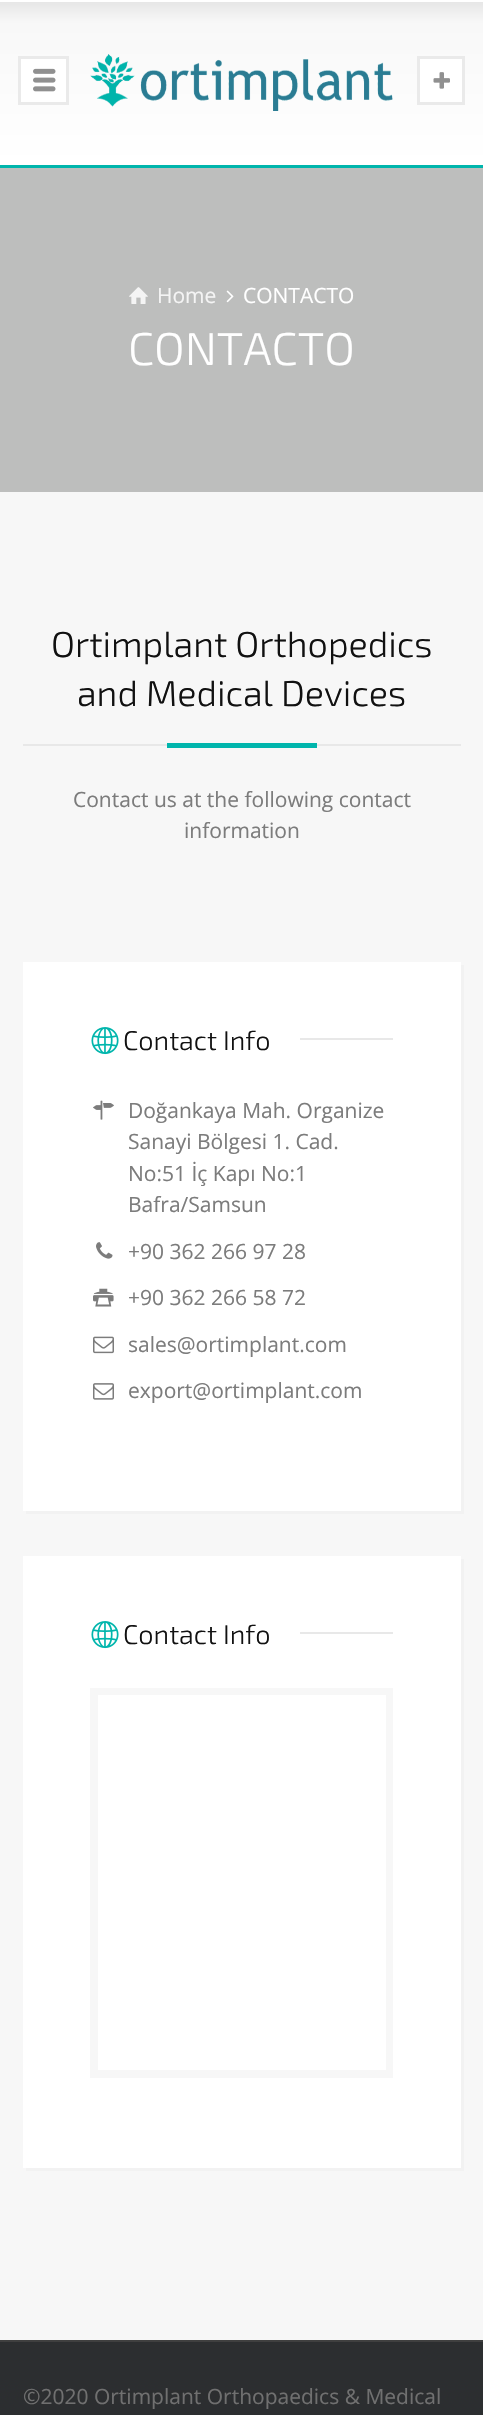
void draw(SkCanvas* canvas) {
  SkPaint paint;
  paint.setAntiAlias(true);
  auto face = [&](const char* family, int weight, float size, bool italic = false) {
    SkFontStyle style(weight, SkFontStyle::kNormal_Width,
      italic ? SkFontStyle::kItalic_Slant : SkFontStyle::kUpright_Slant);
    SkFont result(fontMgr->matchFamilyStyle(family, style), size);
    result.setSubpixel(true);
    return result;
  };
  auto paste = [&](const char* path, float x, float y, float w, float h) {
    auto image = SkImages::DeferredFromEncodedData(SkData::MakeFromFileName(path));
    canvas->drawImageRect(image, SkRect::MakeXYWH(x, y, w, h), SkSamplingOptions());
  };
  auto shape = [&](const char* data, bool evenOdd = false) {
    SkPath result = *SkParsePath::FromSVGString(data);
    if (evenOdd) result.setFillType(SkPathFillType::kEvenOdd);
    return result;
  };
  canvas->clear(0xff3f3f3f);
  {
    const SkColor colors[] = {0xffffffff, 0xffe6e6e6, 0xfff8f8f8, 0xffffffff};
    const float stops[] = {0.01f, 0.01f, 0.14f, 1};
    const SkPoint ends[] = {{242, 0}, {242, 165}};
    paint.setShader(SkGradientShader::MakeLinear(ends, colors, stops, 4, SkTileMode::kClamp));
    paint.setAlpha(255);
  }
  canvas->drawRect(SkRect::MakeXYWH(0, 0, 483, 165), paint);
  paste("img/1.png", 90, 54, 303, 57);
  paint.setShader(nullptr);
  paint.setColor(0xffffffff);
  canvas->drawRect(SkRect::MakeXYWH(19.5f, 57.5f, 48, 46), paint);
  paint.setStroke(true);
  paint.setStrokeWidth(3);
  paint.setColor(0xffeaeaea);
  canvas->drawRect(SkRect::MakeXYWH(19.5f, 57.5f, 48, 46), paint);
  paste("img/2.png", 33, 68, 23, 24);
  paint.setStroke(false);
  paint.setColor(0xffffffff);
  canvas->drawRect(SkRect::MakeXYWH(418.5f, 57.5f, 45, 46), paint);
  paint.setStroke(true);
  paint.setColor(0xffeaeaea);
  canvas->drawRect(SkRect::MakeXYWH(418.5f, 57.5f, 45, 46), paint);
  paste("img/3.png", 433, 72, 17, 17);
  paint.setStroke(false);
  paint.setColor(0xff00b5ac);
  canvas->drawRect(SkRect::MakeXYWH(0, 165, 483, 3), paint);
  paint.setColor(0xffbdbebd);
  canvas->drawRect(SkRect::MakeXYWH(0, 168, 483, 324), paint);
  paste("img/4.png", 129, 287, 19, 17);
  paste("img/5.png", 226, 290, 8, 13);
  {
    const struct { float x, y, w, h; SkColor color; } items[] = {
      {0, 492, 483, 1848, 0xfff7f7f7},
      {23, 744, 438, 2, 0xffe8e8e8},
      {167, 743, 150, 5, 0xff00b5ac},
    };
    for (auto [x, y, w, h, color] : items) {
      paint.setColor(color);
      canvas->drawRect(SkRect::MakeXYWH(x, y, w, h), paint);
    }
  }
  paint.setColor(0xfff2f2f2);
  canvas->drawPath(shape("M26 1510V1514H464V965H460V1510Z"), paint);
  paint.setColor(0xffffffff);
  canvas->drawRect(SkRect::MakeXYWH(23, 962, 438, 549), paint);
  paste("img/6.png", 91, 1027, 28, 28);
  paint.setColor(0xffe8e8e8);
  canvas->drawRect(SkRect::MakeXYWH(300, 1038, 93, 2), paint);
  paste("img/7.png", 93, 1100, 21, 20);
  paste("img/8.png", 96, 1242, 17, 17);
  paste("img/9.png", 93, 1288, 21, 19);
  paste("img/10.png", 93, 1336, 21, 18);
  paste("img/11.png", 93, 1383, 21, 17);
  paint.setColor(0xfff2f2f2);
  canvas->drawPath(shape("M26 2168V2171H464V1559H460V2168Z"), paint);
  paint.setColor(0xffffffff);
  canvas->drawRect(SkRect::MakeXYWH(23, 1556, 438, 612), paint);
  paste("img/6.png", 91, 1621, 28, 28);
  {
    const struct { float x, y, w, h; SkColor color; } items[] = {
      {300, 1632, 93, 2, 0xffe8e8e8},
      {90, 1688, 303, 390, 0xfff7f7f7},
      {98, 1695, 288, 375, 0xffffffff},
      {0, 2342, 483, 73, 0xff2c2e30},
    };
    for (auto [x, y, w, h, color] : items) {
      paint.setColor(color);
      canvas->drawRect(SkRect::MakeXYWH(x, y, w, h), paint);
    }
  }
  auto f0 = face("Open Sans", 400, 21);
  paint.setColor(0xfff4f4f4);
  canvas->drawString("Home", 157, 303, f0, paint);
  paint.setColor(0xffffffff);
  canvas->drawString("CONTACTO", 243, 303, f0, paint);
  auto f1 = face("Exo 2", 300, 46);
  canvas->drawString("CONTACTO", 128, 365, f1, paint);
  auto f2 = face("Exo 2", 300, 36);
  paint.setColor(0xff111111);
  canvas->drawString("Ortimplant Orthopedics", 51, 657, f2, paint);
  canvas->drawString("and Medical Devices", 77, 706, f2, paint);
  paint.setColor(0xff7c7c7c);
  canvas->drawString("Contact us at the following contact", 73, 807, f0, paint);
  canvas->drawString("information", 184, 838, f0, paint);
  auto f3 = face("Exo 2", 300, 27);
  paint.setColor(0xff111111);
  canvas->drawString("Contact Info", 123, 1050, f3, paint);
  paint.setColor(0xff7c7c7c);
  {
    const struct { const char* s; float x, y; } items[] = {
      {"Doğankaya Mah. Organize", 128, 1118},
      {"Sanayi Bölgesi 1. Cad.", 128, 1149},
      {"No:51 İç Kapı No:1", 128, 1181},
      {"Bafra/Samsun", 128, 1212},
      {"+90 362 266 97 28", 128, 1259},
      {"+90 362 266 58 72", 128, 1305},
      {"sales@ortimplant.com", 128, 1352},
      {"export@ortimplant.com", 128, 1398},
    };
    for (auto [s, x, y] : items) {
      canvas->drawString(s, x, y, f0, paint);
    }
  }
  paint.setColor(0xff111111);
  canvas->drawString("Contact Info", 123, 1644, f3, paint);
  paint.setColor(0xff707070);
  canvas->drawString("©2020 Ortimplant Orthopaedics & Medical", 23, 2404, f0, paint);
}
